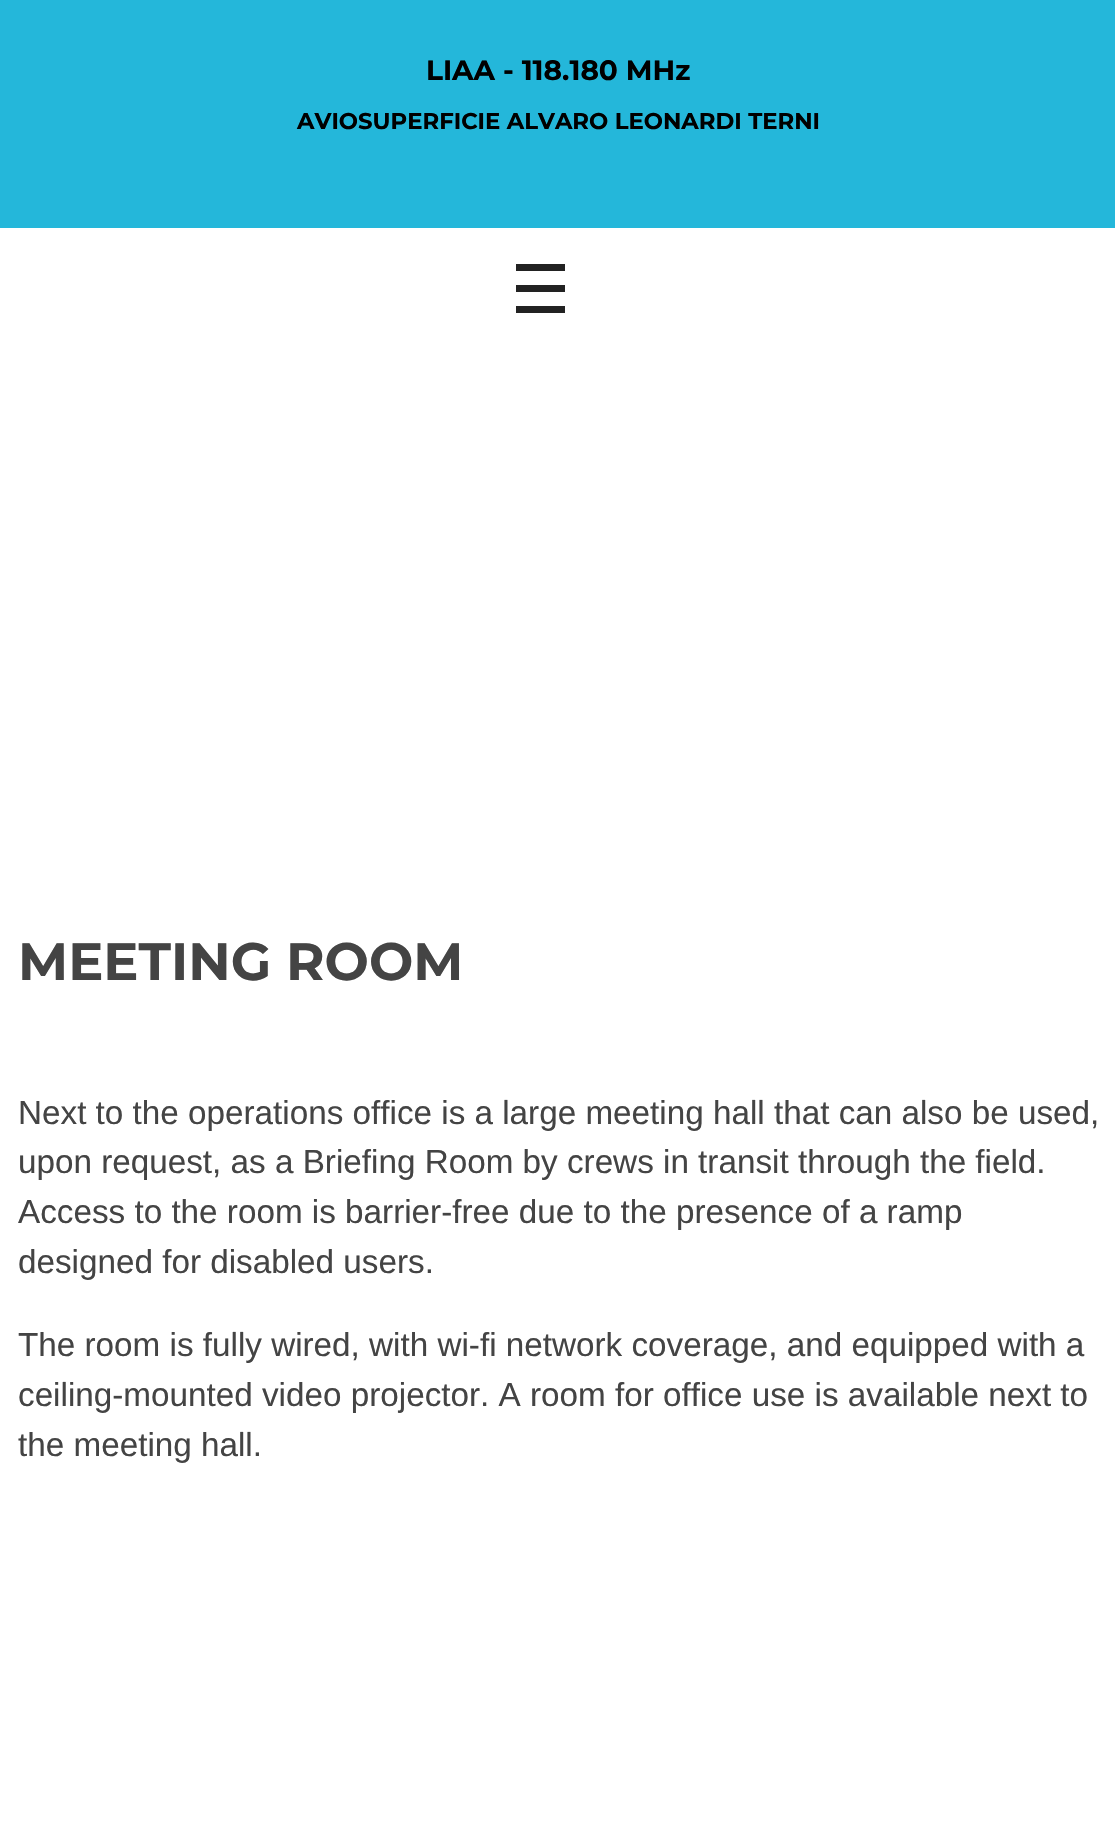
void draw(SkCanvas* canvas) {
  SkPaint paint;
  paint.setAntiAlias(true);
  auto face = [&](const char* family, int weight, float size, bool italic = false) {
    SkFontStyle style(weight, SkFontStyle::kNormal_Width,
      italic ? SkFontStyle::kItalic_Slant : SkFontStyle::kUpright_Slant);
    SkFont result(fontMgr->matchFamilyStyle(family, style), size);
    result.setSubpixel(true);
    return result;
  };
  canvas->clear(0xffffffff);
  {
    const struct { float x, y, w, h; SkColor color; } items[] = {
      {0, 0, 1115, 228, 0xff24b7da},
      {516, 264, 49, 7, 0xff222222},
      {516, 285, 49, 7, 0xff222222},
      {516, 306, 49, 7, 0xff222222},
    };
    for (auto [x, y, w, h, color] : items) {
      paint.setColor(color);
      canvas->drawRect(SkRect::MakeXYWH(x, y, w, h), paint);
    }
  }
  auto f0 = face("Montserrat", 700, 28);
  paint.setColor(0xff000000);
  canvas->drawString("LIAA - 118.180 MHz", 426, 80, f0, paint);
  auto f1 = face("Montserrat", 700, 22.75f);
  canvas->drawString("AVIOSUPERFICIE ALVARO LEONARDI TERNI", 297, 129, f1, paint);
  auto f2 = face("Montserrat", 700, 52.5f);
  paint.setColor(0xff444444);
  canvas->drawString("MEETING ROOM", 18, 980, f2, paint);
  auto f3 = face("Liberation Sans", 400, 33.25f);
  {
    const struct { const char* s; float x, y; } items[] = {
      {"Next to the operations office is a large meeting hall that can also be used,", 18, 1124},
      {"upon request, as a Briefing Room by crews in transit through the field.", 18, 1173},
      {"Access to the room is barrier-free due to the presence of a ramp", 18, 1223},
      {"designed for disabled users.", 18, 1273},
      {"The room is fully wired, with wi-fi network coverage, and equipped with a", 18, 1356},
      {"ceiling-mounted video projector. A room for office use is available next to", 18, 1406},
      {"the meeting hall.", 18, 1456},
    };
    for (auto [s, x, y] : items) {
      canvas->drawString(s, x, y, f3, paint);
    }
  }
}
